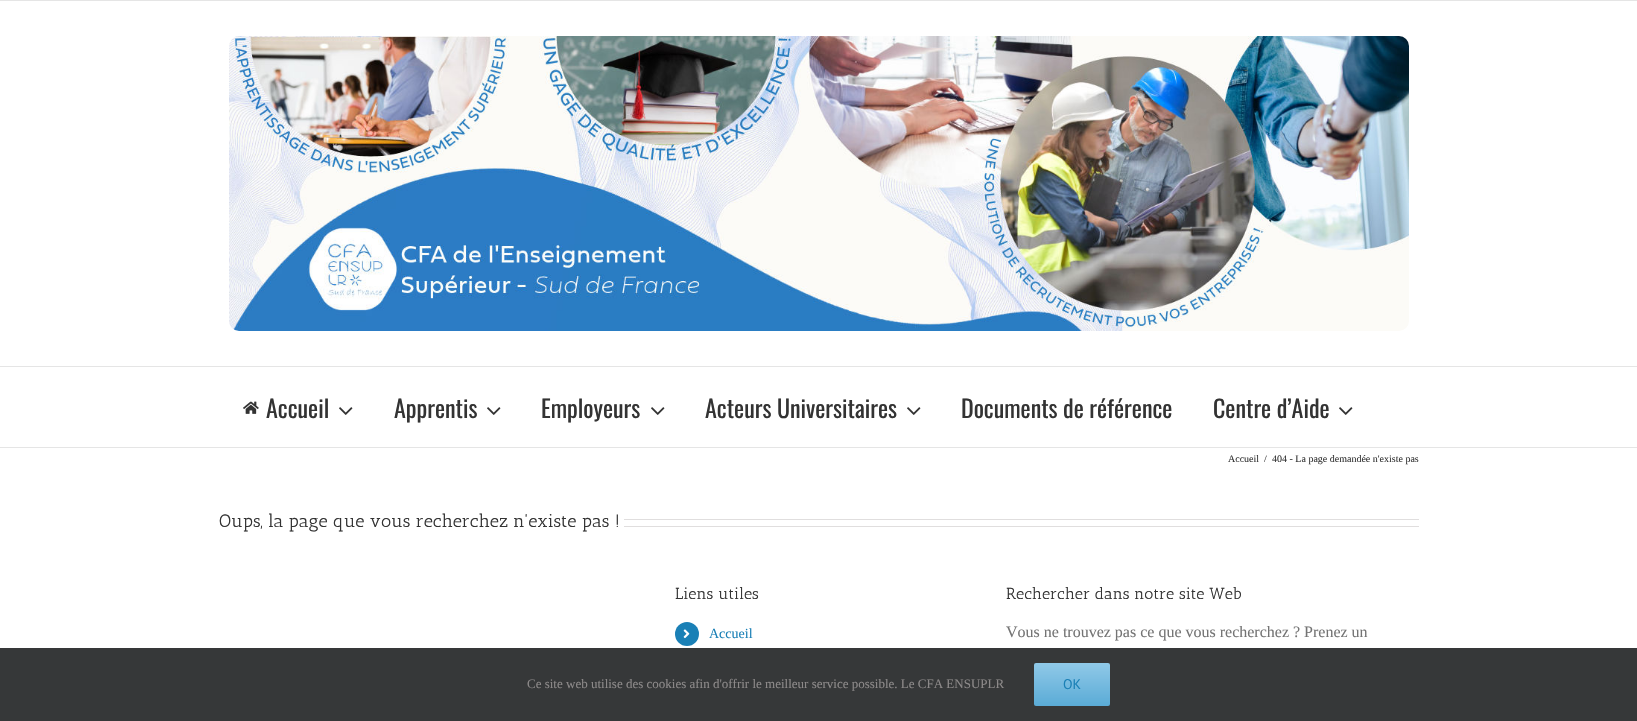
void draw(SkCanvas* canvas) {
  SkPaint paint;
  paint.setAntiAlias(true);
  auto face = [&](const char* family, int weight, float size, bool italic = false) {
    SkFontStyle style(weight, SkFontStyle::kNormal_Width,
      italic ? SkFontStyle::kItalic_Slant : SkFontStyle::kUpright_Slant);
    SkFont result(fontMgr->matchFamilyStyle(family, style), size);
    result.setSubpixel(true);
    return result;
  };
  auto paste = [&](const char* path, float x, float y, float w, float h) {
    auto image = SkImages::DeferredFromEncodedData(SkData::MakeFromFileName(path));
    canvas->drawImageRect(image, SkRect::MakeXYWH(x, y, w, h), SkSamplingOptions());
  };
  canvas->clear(0xffffffff);
  paint.setColor(0xffe5e5e5);
  canvas->drawRect(SkRect::MakeXYWH(0, 0, 1637, 1), paint);
  canvas->drawRect(SkRect::MakeXYWH(0, 366, 1637, 1), paint);
  paste("img/1.png", 229, 36, 1180, 295);
  canvas->drawRect(SkRect::MakeXYWH(0, 447, 1637, 1), paint);
  paste("img/2.png", 243, 401, 16, 13);
  paste("img/3.png", 339, 407, 14, 8);
  paste("img/3.png", 487, 407, 14, 8);
  paste("img/3.png", 651, 407, 14, 8);
  paste("img/3.png", 907, 407, 14, 8);
  paste("img/3.png", 1339, 407, 14, 8);
  paint.setColor(0xffe0dede);
  canvas->drawRect(SkRect::MakeXYWH(624, 519, 795, 1), paint);
  canvas->drawRect(SkRect::MakeXYWH(624, 526, 795, 1), paint);
  paint.setColor(0xff1a80b6);
  canvas->drawCircle(687, 634, 12, paint);
  paste("img/4.png", 683, 629, 7, 10);
  paint.setColor(0xff363839);
  canvas->drawRect(SkRect::MakeXYWH(0, 648, 1637, 73), paint);
  {
    const SkColor colors[] = {0xff5aabd6, 0xff90c9e8};
    const float stops[] = {0, 1};
    const SkPoint ends[] = {{1072, 706}, {1072, 663}};
    paint.setShader(SkGradientShader::MakeLinear(ends, colors, stops, 2, SkTileMode::kClamp));
    paint.setAlpha(255);
  }
  canvas->drawRoundRect(SkRect::MakeXYWH(1034, 663, 76, 43), 2, 2, paint);
  auto f0 = face("Oswald", 400, 24);
  paint.setShader(nullptr);
  paint.setColor(0xff333333);
  {
    const struct { const char* s; float x, y; } items[] = {
      {"Accueil", 266, 418},
      {"Apprentis", 394, 418},
      {"Employeurs", 541, 418},
      {"Acteurs Universitaires", 705, 418},
      {"Documents de référence", 961, 418},
      {"Centre d’Aide", 1213, 418},
    };
    for (auto [s, x, y] : items) {
      canvas->drawString(s, x, y, f0, paint);
    }
  }
  auto f1 = face("Liberation Serif", 400, 10);
  {
    const struct { const char* s; float x, y; } items[] = {
      {"Accueil", 1228, 462},
      {"/", 1264, 462},
      {"404 - La page demandée n'existe pas", 1272, 462},
    };
    for (auto [s, x, y] : items) {
      canvas->drawString(s, x, y, f1, paint);
    }
  }
  auto f2 = face("Antic Slab", 400, 18);
  canvas->drawString("Oups, la page que vous recherchez n'existe pas !", 219, 527, f2, paint);
  auto f3 = face("Antic Slab", 400, 16);
  canvas->drawString("Liens utiles", 675, 599, f3, paint);
  auto f4 = face("Liberation Serif", 400, 14);
  paint.setColor(0xff1a80b6);
  canvas->drawString("Accueil", 709, 638, f4, paint);
  paint.setColor(0xff333333);
  canvas->drawString("Rechercher dans notre site Web", 1006, 599, f3, paint);
  auto f5 = face("Liberation Serif", 400, 16);
  paint.setColor(0xff747474);
  canvas->drawString("Vous ne trouvez pas ce que vous recherchez ? Prenez un", 1006, 637, f5, paint);
  auto f6 = face("Liberation Serif", 400, 13);
  paint.setColor(0xff8c8989);
  canvas->drawString("Ce site web utilise des cookies afin d'offrir le meilleur service possible. Le CFA ENSUPLR", 527, 688, f6, paint);
  auto f7 = face("PT Sans", 400, 14);
  paint.setColor(0xff1a80b6);
  canvas->drawString("OK", 1063, 689, f7, paint);
}
